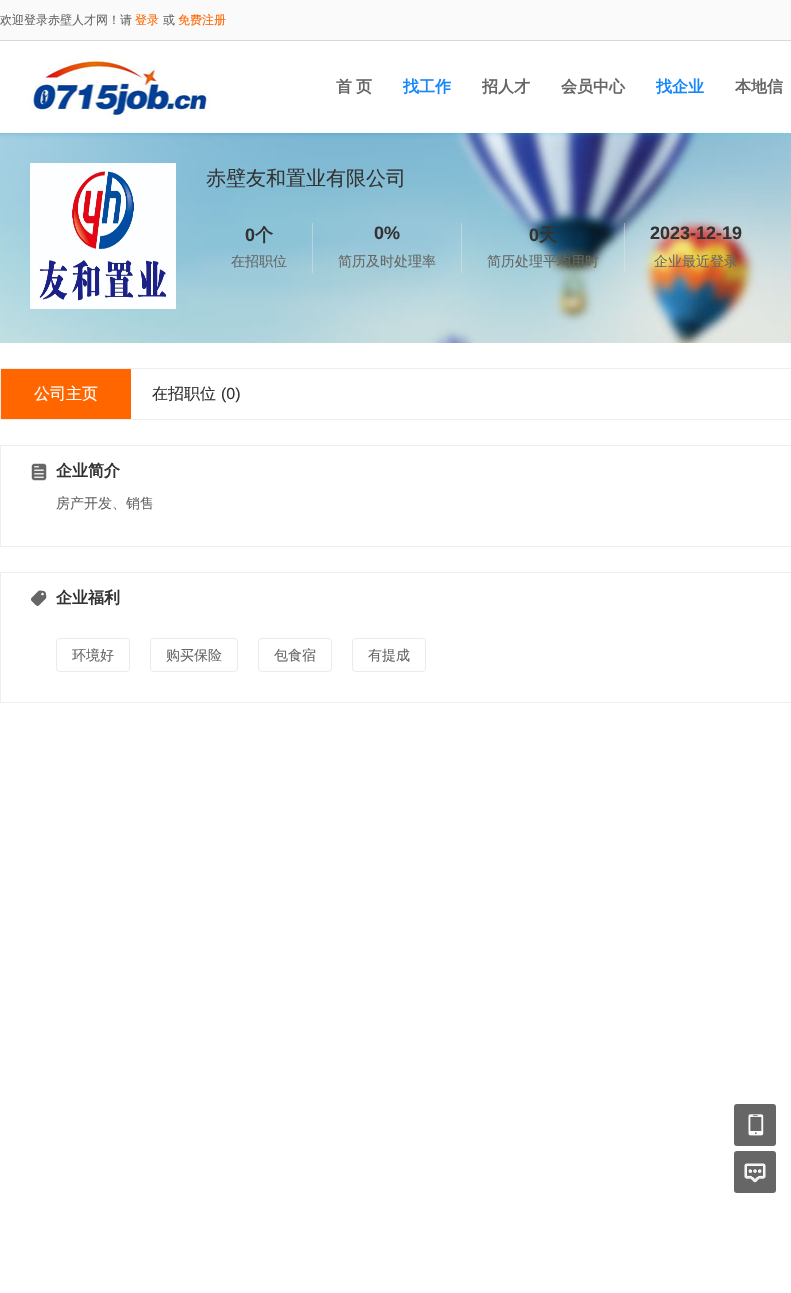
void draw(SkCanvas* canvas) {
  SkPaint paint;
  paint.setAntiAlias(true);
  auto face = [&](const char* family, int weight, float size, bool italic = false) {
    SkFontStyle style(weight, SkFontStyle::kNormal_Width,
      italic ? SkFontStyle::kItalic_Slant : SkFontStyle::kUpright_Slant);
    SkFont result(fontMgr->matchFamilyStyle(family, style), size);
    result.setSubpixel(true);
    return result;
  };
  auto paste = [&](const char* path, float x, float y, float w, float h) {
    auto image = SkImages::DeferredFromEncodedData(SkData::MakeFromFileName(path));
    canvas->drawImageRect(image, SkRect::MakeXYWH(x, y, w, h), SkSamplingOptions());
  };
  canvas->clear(0xffffffff);
  paint.setColor(0xfffafafa);
  canvas->drawRect(SkRect::MakeXYWH(0, 0, 791, 40), paint);
  paint.setColor(0xffd8d8d8);
  canvas->drawRect(SkRect::MakeXYWH(0, 40, 791, 1), paint);
  paste("img/1.png", 29, 59, 182, 59);
  paste("img/2.png", 0, 133, 791, 210);
  paste("img/3.png", 30, 163, 146, 146);
  {
    const struct { float x, y, w, h; SkColor color; } items[] = {
      {312, 223, 1, 50, 0x6ee8e8e8},
      {461, 223, 1, 50, 0x6ee8e8e8},
      {624, 223, 1, 50, 0x6ee8e8e8},
    };
    for (auto [x, y, w, h, color] : items) {
      paint.setColor(color);
      canvas->drawRect(SkRect::MakeXYWH(x, y, w, h), paint);
    }
  }
  paint.setStroke(true);
  paint.setStrokeWidth(1);
  paint.setColor(0xffeeeeee);
  canvas->drawRect(SkRect::MakeXYWH(0.5f, 368.5f, 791, 51), paint);
  paint.setStroke(false);
  paint.setColor(0xffff6600);
  canvas->drawRect(SkRect::MakeXYWH(1, 369, 130, 50), paint);
  paint.setStroke(true);
  paint.setColor(0xffeeeeee);
  canvas->drawRect(SkRect::MakeXYWH(0.5f, 445.5f, 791, 101), paint);
  paste("img/4.png", 31, 463, 16, 18);
  canvas->drawRect(SkRect::MakeXYWH(0.5f, 572.5f, 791, 130), paint);
  paste("img/5.png", 31, 590, 16, 16);
  paint.setColor(0xffebebeb);
  canvas->drawRoundRect(SkRect::MakeXYWH(56.5f, 638.5f, 73, 33), 3.5f, 3.5f, paint);
  canvas->drawRoundRect(SkRect::MakeXYWH(150.5f, 638.5f, 87, 33), 3.5f, 3.5f, paint);
  canvas->drawRoundRect(SkRect::MakeXYWH(258.5f, 638.5f, 73, 33), 3.5f, 3.5f, paint);
  canvas->drawRoundRect(SkRect::MakeXYWH(352.5f, 638.5f, 73, 33), 3.5f, 3.5f, paint);
  paste("img/6.png", 734, 1104, 42, 42);
  paste("img/7.png", 734, 1151, 42, 42);
  auto f0 = face("WenQuanYi Zen Hei", 500, 12);
  paint.setStroke(false);
  paint.setColor(0xff666666);
  canvas->drawString("欢迎登录赤壁人才网！请", 0, 24, f0, paint);
  paint.setColor(0xffff6600);
  canvas->drawString("登录", 135, 24, f0, paint);
  paint.setColor(0xff666666);
  canvas->drawString("或", 163, 24, f0, paint);
  paint.setColor(0xffff6600);
  canvas->drawString("免费注册", 178, 24, f0, paint);
  auto f1 = face("WenQuanYi Zen Hei", 700, 16);
  paint.setColor(0xff666666);
  canvas->drawString("首", 336, 92, f1, paint);
  canvas->drawString("页", 356, 92, f1, paint);
  paint.setColor(0xff1787fb);
  canvas->drawString("找工作", 403, 92, f1, paint);
  paint.setColor(0xff666666);
  canvas->drawString("招人才", 482, 92, f1, paint);
  canvas->drawString("会员中心", 561, 92, f1, paint);
  paint.setColor(0xff1787fb);
  canvas->drawString("找企业", 656, 92, f1, paint);
  paint.setColor(0xff666666);
  canvas->drawString("本地信", 735, 92, f1, paint);
  auto f2 = face("WenQuanYi Zen Hei", 500, 20);
  paint.setColor(0xff333333);
  canvas->drawString("赤壁友和置业有限公司", 206, 185, f2, paint);
  auto f3 = face("Liberation Sans", 700, 18);
  canvas->drawString("0", 245, 241, f3, paint);
  auto f4 = face("WenQuanYi Zen Hei", 700, 18);
  canvas->drawString("个", 255, 241, f4, paint);
  auto f5 = face("WenQuanYi Zen Hei", 500, 14);
  paint.setColor(0xff666666);
  canvas->drawString("在招职位", 231, 266, f5, paint);
  paint.setColor(0xff333333);
  canvas->drawString("0%", 374, 239, f3, paint);
  paint.setColor(0xff666666);
  canvas->drawString("简历及时处理率", 338, 266, f5, paint);
  paint.setColor(0xff333333);
  canvas->drawString("0", 529, 241, f3, paint);
  canvas->drawString("天", 539, 241, f4, paint);
  paint.setColor(0xff666666);
  canvas->drawString("简历处理平均用时", 487, 266, f5, paint);
  paint.setColor(0xff333333);
  canvas->drawString("2023-12-19", 650, 239, f3, paint);
  paint.setColor(0xff666666);
  canvas->drawString("企业最近登录", 654, 266, f5, paint);
  auto f6 = face("WenQuanYi Zen Hei", 500, 16);
  paint.setColor(0xffffffff);
  canvas->drawString("公司主页", 34, 399, f6, paint);
  paint.setColor(0xff333333);
  canvas->drawString("在招职位", 152, 399, f6, paint);
  auto f7 = face("Liberation Sans", 400, 16);
  canvas->drawString("(0)", 221, 399, f7, paint);
  canvas->drawString("企业简介", 56, 476, f1, paint);
  paint.setColor(0xff666666);
  canvas->drawString("房产开发、销售", 56, 508, f5, paint);
  paint.setColor(0xff333333);
  canvas->drawString("企业福利", 56, 603, f1, paint);
  paint.setColor(0xff666666);
  {
    const struct { const char* s; float x, y; } items[] = {
      {"环境好", 72, 660},
      {"购买保险", 166, 660},
      {"包食宿", 274, 660},
      {"有提成", 368, 660},
    };
    for (auto [s, x, y] : items) {
      canvas->drawString(s, x, y, f5, paint);
    }
  }
}
